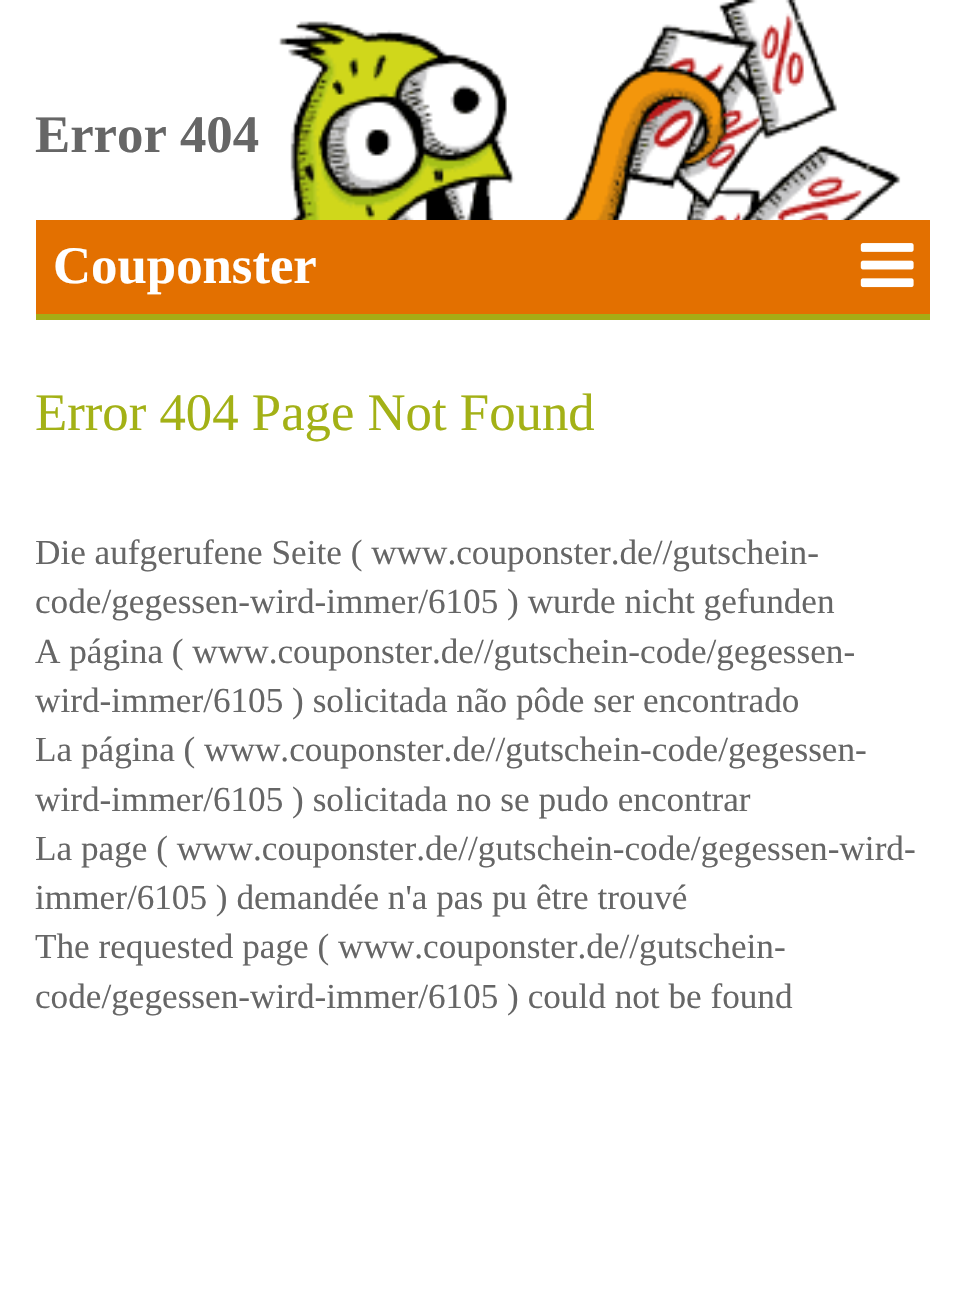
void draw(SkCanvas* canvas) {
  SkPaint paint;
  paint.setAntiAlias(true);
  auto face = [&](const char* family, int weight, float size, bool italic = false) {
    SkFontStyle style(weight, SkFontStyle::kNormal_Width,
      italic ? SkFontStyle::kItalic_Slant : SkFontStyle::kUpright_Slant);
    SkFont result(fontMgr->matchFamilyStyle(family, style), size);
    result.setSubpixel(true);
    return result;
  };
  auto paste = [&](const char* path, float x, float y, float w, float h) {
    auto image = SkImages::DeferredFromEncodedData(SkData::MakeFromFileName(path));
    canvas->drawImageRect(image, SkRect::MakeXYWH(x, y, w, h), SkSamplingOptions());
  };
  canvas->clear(0xffffffff);
  paste("img/1.png", 278, 0, 623, 220);
  paint.setColor(0xffe37000);
  canvas->drawRect(SkRect::MakeXYWH(36, 220, 894, 94), paint);
  paint.setColor(0xffa6ac15);
  canvas->drawRect(SkRect::MakeXYWH(36, 314, 894, 6), paint);
  paste("img/2.png", 860, 243, 54, 45);
  auto f0 = face("Liberation Serif", 700, 52.75f);
  paint.setColor(0xff666666);
  canvas->drawString("Error 404", 35, 152, f0, paint);
  paint.setColor(0xffffffff);
  canvas->drawString("Couponster", 53, 283, f0, paint);
  auto f1 = face("Liberation Serif", 400, 52.75f);
  paint.setColor(0xffa3b116);
  canvas->drawString("Error 404 Page Not Found", 35, 430, f1, paint);
  auto f2 = face("Liberation Serif", 400, 35.2f);
  paint.setColor(0xff666666);
  {
    const struct { const char* s; float x, y; } items[] = {
      {"Die aufgerufene Seite ( www.couponster.de//gutschein-", 35, 564},
      {"code/gegessen-wird-immer/6105 ) wurde nicht gefunden", 35, 613},
      {"A página ( www.couponster.de//gutschein-code/gegessen-", 35, 663},
      {"wird-immer/6105 ) solicitada não pôde ser encontrado", 35, 712},
      {"La página ( www.couponster.de//gutschein-code/gegessen-", 35, 761},
      {"wird-immer/6105 ) solicitada no se pudo encontrar", 35, 811},
      {"La page ( www.couponster.de//gutschein-code/gegessen-wird-", 35, 860},
      {"immer/6105 ) demandée n'a pas pu être trouvé", 35, 909},
      {"The requested page ( www.couponster.de//gutschein-", 35, 958},
      {"code/gegessen-wird-immer/6105 ) could not be found", 35, 1008},
    };
    for (auto [s, x, y] : items) {
      canvas->drawString(s, x, y, f2, paint);
    }
  }
}
